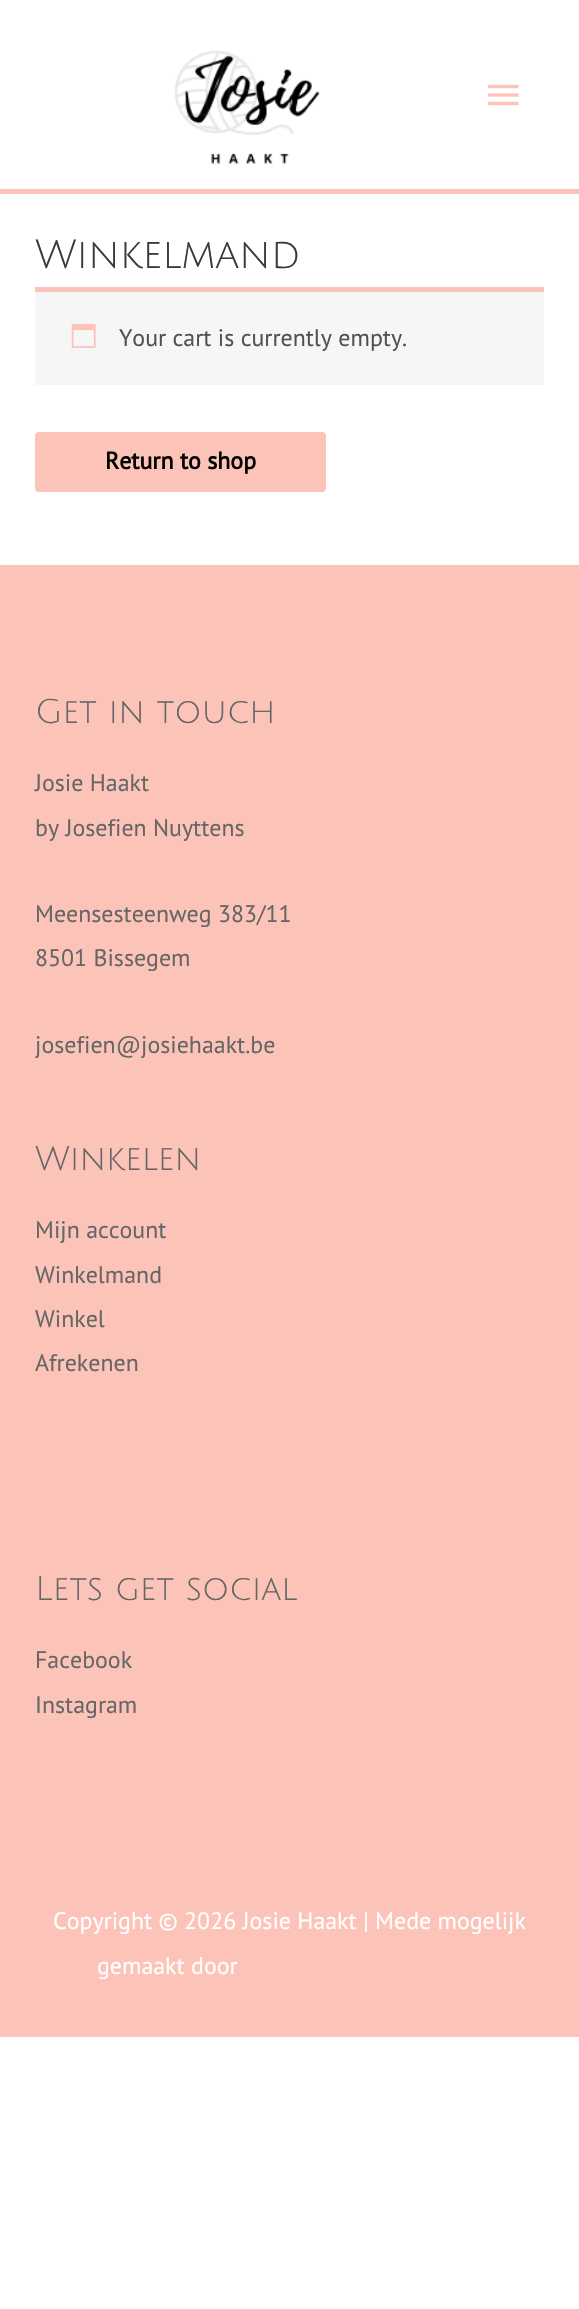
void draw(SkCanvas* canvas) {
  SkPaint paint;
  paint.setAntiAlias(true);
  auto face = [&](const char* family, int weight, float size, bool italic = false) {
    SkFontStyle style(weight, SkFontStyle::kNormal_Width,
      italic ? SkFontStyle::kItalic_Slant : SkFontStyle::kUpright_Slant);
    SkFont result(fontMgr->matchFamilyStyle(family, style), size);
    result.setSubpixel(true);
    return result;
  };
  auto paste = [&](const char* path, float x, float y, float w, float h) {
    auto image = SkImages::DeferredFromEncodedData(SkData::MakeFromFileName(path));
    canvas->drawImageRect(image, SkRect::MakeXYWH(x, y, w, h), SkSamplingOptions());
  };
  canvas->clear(0xffffffff);
  paint.setColor(0xfffcc4b8);
  canvas->drawRect(SkRect::MakeXYWH(0, 189, 579, 5), paint);
  paste("img/1.png", 174, 50, 146, 114);
  paste("img/2.png", 488, 84, 31, 22);
  paint.setColor(0xfff7f6f7);
  canvas->drawRect(SkRect::MakeXYWH(35, 292, 509, 93), paint);
  paint.setColor(0xfffcc4b8);
  canvas->drawRect(SkRect::MakeXYWH(35, 287, 509, 5), paint);
  paste("img/3.png", 71, 324, 25, 24);
  canvas->drawRoundRect(SkRect::MakeXYWH(35, 432, 291, 60), 4, 4, paint);
  canvas->drawRect(SkRect::MakeXYWH(0, 565, 579, 1472), paint);
  auto f0 = face("Julius Sans One", 400, 40);
  paint.setColor(0xff3a3a3a);
  canvas->drawString("Winkelmand", 35, 268, f0, paint);
  auto f1 = face("PT Sans", 400, 23.9f);
  paint.setColor(0xff515151);
  canvas->drawString("Your cart is currently empty.", 119, 346, f1, paint);
  auto f2 = face("PT Sans", 700, 23.9f);
  paint.setColor(0xff000000);
  canvas->drawString("Return to shop", 105, 469, f2, paint);
  auto f3 = face("Julius Sans One", 400, 33.5f);
  paint.setColor(0xff666666);
  canvas->drawString("Get in touch", 35, 723, f3, paint);
  {
    const struct { const char* s; float x, y; } items[] = {
      {"Josie Haakt", 35, 791},
      {"by Josefien Nuyttens", 35, 836},
      {"Meensesteenweg 383/11", 35, 922},
      {"8501 Bissegem", 35, 966},
      {"josefien@josiehaakt.be", 35, 1053},
    };
    for (auto [s, x, y] : items) {
      canvas->drawString(s, x, y, f1, paint);
    }
  }
  canvas->drawString("Winkelen", 35, 1170, f3, paint);
  {
    const struct { const char* s; float x, y; } items[] = {
      {"Mijn account", 35, 1238},
      {"Winkelmand", 35, 1283},
      {"Winkel", 35, 1327},
      {"Afrekenen", 35, 1371},
    };
    for (auto [s, x, y] : items) {
      canvas->drawString(s, x, y, f1, paint);
    }
  }
  canvas->drawString("Lets get social", 35, 1600, f3, paint);
  canvas->drawString("Facebook", 35, 1668, f1, paint);
  canvas->drawString("Instagram", 35, 1713, f1, paint);
  paint.setColor(0xffffffff);
  canvas->drawString("Copyright © 2026 Josie Haakt | Mede mogelijk", 53, 1929, f1, paint);
  canvas->drawString("gemaakt door", 97, 1974, f1, paint);
}
